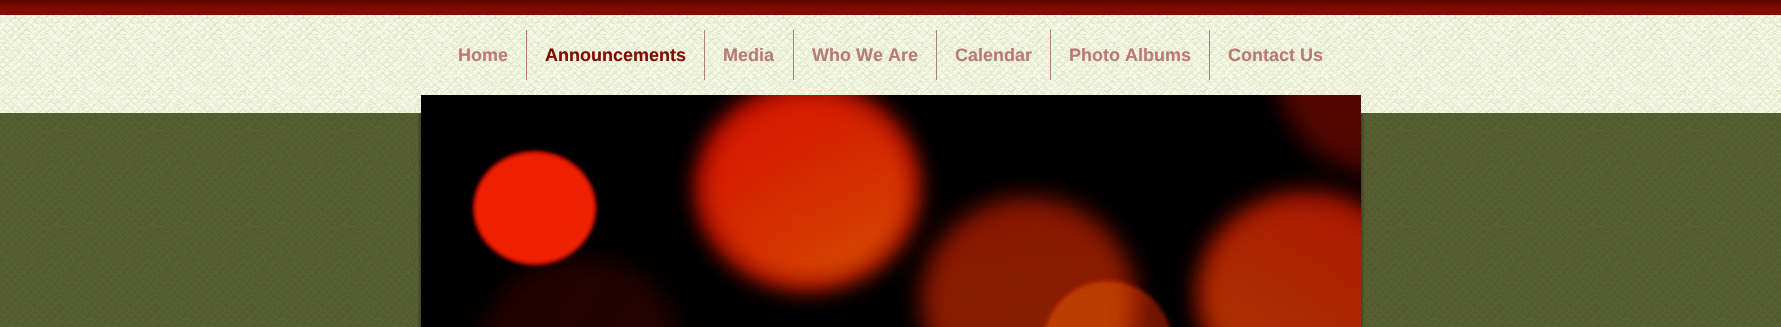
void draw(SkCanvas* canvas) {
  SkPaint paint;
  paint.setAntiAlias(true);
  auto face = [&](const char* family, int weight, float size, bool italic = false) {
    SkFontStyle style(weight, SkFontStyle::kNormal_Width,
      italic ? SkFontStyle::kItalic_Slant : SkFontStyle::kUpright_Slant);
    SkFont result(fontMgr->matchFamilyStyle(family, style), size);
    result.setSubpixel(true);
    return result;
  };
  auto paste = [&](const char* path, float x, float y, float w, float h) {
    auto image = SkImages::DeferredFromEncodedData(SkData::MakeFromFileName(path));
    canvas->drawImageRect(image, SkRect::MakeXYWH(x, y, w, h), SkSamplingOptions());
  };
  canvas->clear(0xffffffff);
  paste("img/1.png", 0, 0, 1781, 327);
  {
    const struct { float x, y, w, h; SkColor color; } items[] = {
      {526, 30, 1, 50, 0xffb97974},
      {704, 30, 1, 50, 0xffb97974},
      {793, 30, 1, 50, 0xffb97974},
      {936, 30, 1, 50, 0xffb97974},
      {1050, 30, 1, 50, 0xffb97974},
      {1209, 30, 1, 50, 0xffb97974},
    };
    for (auto [x, y, w, h, color] : items) {
      paint.setColor(color);
      canvas->drawRect(SkRect::MakeXYWH(x, y, w, h), paint);
    }
  }
  paste("img/2.png", 411, 95, 960, 232);
  auto f0 = face("Liberation Sans", 700, 18);
  canvas->drawString("Home", 458, 61, f0, paint);
  paint.setColor(0xff800b01);
  canvas->drawString("Announcements", 545, 61, f0, paint);
  paint.setColor(0xffb97974);
  {
    const struct { const char* s; float x, y; } items[] = {
      {"Media", 723, 61},
      {"Who We Are", 812, 61},
      {"Calendar", 955, 61},
      {"Photo Albums", 1069, 61},
      {"Contact Us", 1228, 61},
    };
    for (auto [s, x, y] : items) {
      canvas->drawString(s, x, y, f0, paint);
    }
  }
}
